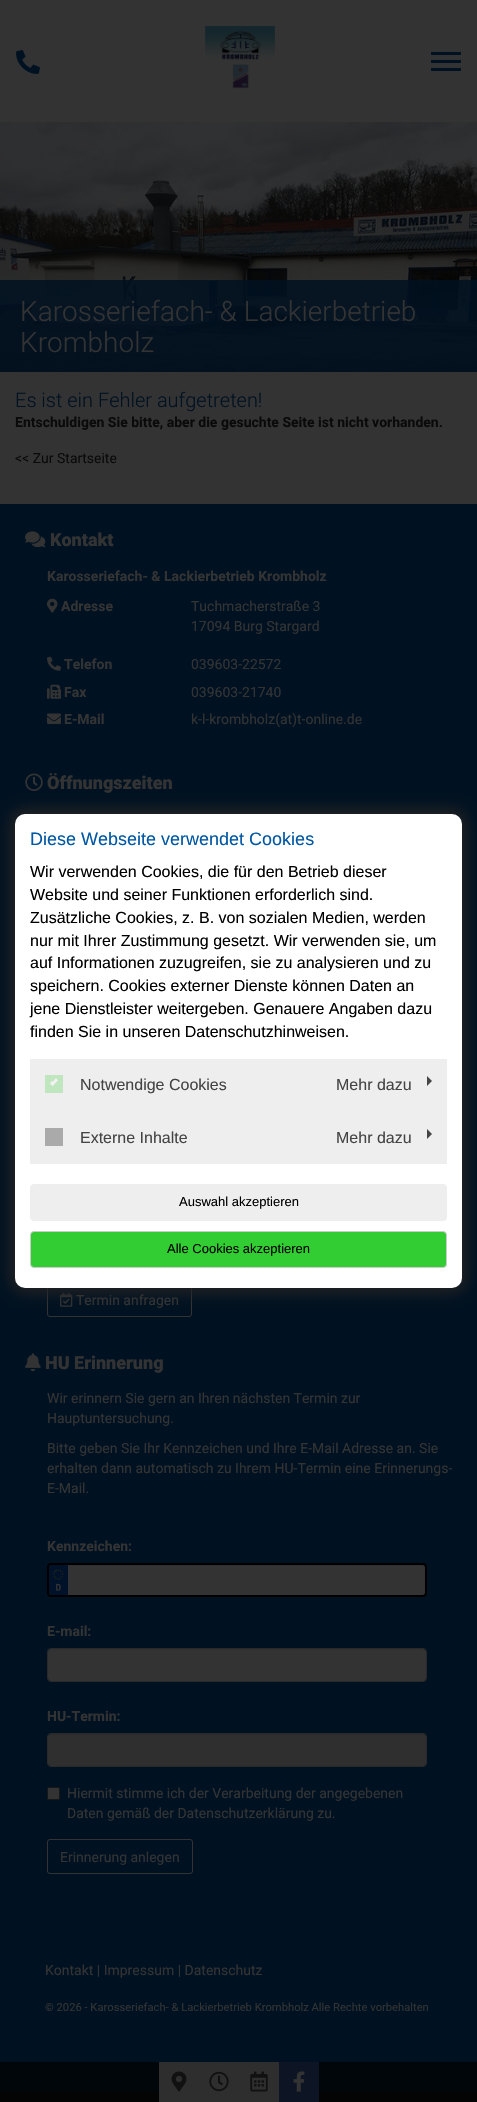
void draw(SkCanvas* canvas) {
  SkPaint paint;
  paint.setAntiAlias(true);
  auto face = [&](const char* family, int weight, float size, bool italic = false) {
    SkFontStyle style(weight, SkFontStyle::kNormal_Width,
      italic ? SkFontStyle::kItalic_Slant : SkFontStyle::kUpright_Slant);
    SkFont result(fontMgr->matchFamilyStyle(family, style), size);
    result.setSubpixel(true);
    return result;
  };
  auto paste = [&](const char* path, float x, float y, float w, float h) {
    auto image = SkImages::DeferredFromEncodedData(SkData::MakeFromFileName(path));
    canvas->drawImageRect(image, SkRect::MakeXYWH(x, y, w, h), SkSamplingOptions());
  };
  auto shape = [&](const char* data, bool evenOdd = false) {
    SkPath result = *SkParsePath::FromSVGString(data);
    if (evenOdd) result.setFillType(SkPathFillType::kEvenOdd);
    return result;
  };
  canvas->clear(0xff0d0d0d);
  paint.setColor(0xff333333);
  canvas->drawRect(SkRect::MakeXYWH(0, 372, 477, 132), paint);
  canvas->drawRect(SkRect::MakeXYWH(0, 0, 477, 122), paint);
  paste("img/1.png", 16, 50, 24, 24);
  paste("img/2.png", 204, 26, 71, 63);
  {
    const struct { float x, y, w, h; SkColor color; } items[] = {
      {431, 52, 30, 3, 0xff001121},
      {431, 60, 30, 3, 0xff001121},
      {431, 68, 30, 3, 0xff001121},
    };
    for (auto [x, y, w, h, color] : items) {
      paint.setColor(color);
      canvas->drawRect(SkRect::MakeXYWH(x, y, w, h), paint);
    }
  }
  paste("img/3.png", 0, 122, 477, 250);
  paint.setColor(0xd9001121);
  canvas->drawRect(SkRect::MakeXYWH(0, 280, 477, 92), paint);
  paint.setColor(0xff001121);
  canvas->drawRect(SkRect::MakeXYWH(0, 504, 477, 1588), paint);
  paste("img/4.png", 25, 531, 21, 17);
  paste("img/5.png", 47, 598, 11, 15);
  paste("img/6.png", 47, 656, 14, 15);
  paste("img/7.png", 47, 684, 14, 15);
  paste("img/8.png", 47, 713, 14, 11);
  paste("img/9.png", 25, 773, 18, 18);
  paint.setStroke(true);
  paint.setStrokeWidth(1);
  paint.setColor(0xff333333);
  canvas->drawRoundRect(SkRect::MakeXYWH(47.5f, 1282.5f, 144, 34), 2.5f, 2.5f, paint);
  paste("img/10.png", 60, 1292, 13, 15);
  paste("img/11.png", 25, 1353, 16, 19);
  paint.setStroke(false);
  canvas->drawRoundRect(SkRect::MakeXYWH(49, 1565, 376, 30), 2, 2, paint);
  paste("img/12.png", 49, 1565, 19, 30);
  paint.setColor(0x12000000);
  canvas->drawPath(shape("M51 1566H423C424 1566 425 1567 425 1568C425 1567 425 1566 424 1565H51L49 1566V1568C49 1567 50 1566 51 1566Z"), paint);
  paint.setStroke(true);
  paint.setStrokeWidth(2);
  paint.setColor(0xff000000);
  canvas->drawRoundRect(SkRect::MakeXYWH(48, 1564, 378, 32), 3, 3, paint);
  paint.setStroke(false);
  paint.setColor(0xff333333);
  canvas->drawRoundRect(SkRect::MakeXYWH(48, 1649, 378, 32), 3, 3, paint);
  paint.setColor(0x12000000);
  canvas->drawPath(shape("M51 1650H423C425 1650 426 1651 426 1653C426 1651 425 1649 423 1649H51L49 1650L48 1653C48 1651 49 1650 51 1650Z"), paint);
  paint.setStroke(true);
  paint.setStrokeWidth(1);
  paint.setColor(0xff292929);
  canvas->drawRoundRect(SkRect::MakeXYWH(47.5f, 1648.5f, 379, 33), 3.5f, 3.5f, paint);
  paint.setStroke(false);
  paint.setColor(0xff2f2f30);
  canvas->drawRoundRect(SkRect::MakeXYWH(48, 1734, 378, 32), 3, 3, paint);
  paint.setColor(0x12000000);
  canvas->drawPath(shape("M51 1735H423C425 1735 426 1736 426 1738C426 1736 425 1734 423 1734H51L49 1735L48 1738C48 1736 49 1735 51 1735Z"), paint);
  paint.setStroke(true);
  paint.setColor(0xff292929);
  canvas->drawRoundRect(SkRect::MakeXYWH(47.5f, 1733.5f, 379, 33), 3.5f, 3.5f, paint);
  paint.setStroke(false);
  paint.setColor(0xff333333);
  canvas->drawRoundRect(SkRect::MakeXYWH(47.5f, 1787.5f, 12, 12), 1.5f, 1.5f, paint);
  paint.setStroke(true);
  paint.setColor(0xff181818);
  canvas->drawRoundRect(SkRect::MakeXYWH(47.5f, 1787.5f, 12, 12), 1.5f, 1.5f, paint);
  paint.setColor(0xff333333);
  canvas->drawRoundRect(SkRect::MakeXYWH(47.5f, 1839.5f, 145, 34), 2.5f, 2.5f, paint);
  paint.setStroke(false);
  paint.setColor(0xb3000000);
  canvas->drawRect(SkRect::MakeXYWH(0, 2062, 477, 40), paint);
  paint.setColor(0xff2e2e2e);
  canvas->drawRect(SkRect::MakeXYWH(159, 2062, 120, 40), paint);
  paste("img/13.png", 171, 2071, 16, 21);
  paint.setColor(0xff0d1524);
  canvas->drawRect(SkRect::MakeXYWH(279, 2062, 40, 40), paint);
  paste("img/14.png", 293, 2071, 12, 21);
  paste("img/15.png", 209, 2071, 20, 21);
  paste("img/16.png", 250, 2071, 18, 21);
  paint.setColor(0xff222222);
  paint.setMaskFilter(SkMaskFilter::MakeBlur(kNormal_SkBlurStyle, 7.5f));
  canvas->drawRoundRect(SkRect::MakeXYWH(10, 809, 457, 484), 15, 15, paint);
  paint.setMaskFilter(nullptr);
  paint.setColor(0xffffffff);
  canvas->drawRoundRect(SkRect::MakeXYWH(15, 814, 447, 474), 10, 10, paint);
  paint.setColor(0xffeeeeee);
  canvas->drawRect(SkRect::MakeXYWH(30, 1059, 417, 105), paint);
  paint.setColor(0xffbfe6bf);
  canvas->drawRect(SkRect::MakeXYWH(45, 1075, 18, 18), paint);
  paint.setColor(0xfff2f2f2);
  canvas->drawPath(shape("M56 1078L58 1080.5L52.5 1086L50.5 1084Z"), paint);
  canvas->drawPath(shape("M52 1081L54.5 1084L52.5 1086L50 1083Z"), paint);
  paint.setColor(0xff444444);
  canvas->drawPath(shape("M427 1086V1076L432 1081Z"), paint);
  paint.setColor(0xffaaaaaa);
  canvas->drawRect(SkRect::MakeXYWH(45, 1128, 18, 18), paint);
  paint.setColor(0xff444444);
  canvas->drawPath(shape("M427 1139V1129L432 1134Z"), paint);
  paint.setColor(0xffeeeeee);
  canvas->drawRoundRect(SkRect::MakeXYWH(30.5f, 1184.5f, 416, 36), 3.5f, 3.5f, paint);
  paint.setStroke(true);
  canvas->drawRoundRect(SkRect::MakeXYWH(30.5f, 1184.5f, 416, 36), 3.5f, 3.5f, paint);
  paint.setStroke(false);
  paint.setColor(0xff32cd32);
  canvas->drawRoundRect(SkRect::MakeXYWH(30.5f, 1231.5f, 416, 36), 3.5f, 3.5f, paint);
  paint.setStroke(true);
  paint.setColor(0xffcccccc);
  canvas->drawRoundRect(SkRect::MakeXYWH(30.5f, 1231.5f, 416, 36), 3.5f, 3.5f, paint);
  auto f0 = face("Roboto", 300, 28);
  paint.setStroke(false);
  paint.setColor(0xff333333);
  canvas->drawString("Karosseriefach- & Lackierbetrieb", 20, 321, f0, paint);
  canvas->drawString("Krombholz", 20, 352, f0, paint);
  auto f1 = face("Roboto", 300, 20);
  paint.setColor(0xff001121);
  canvas->drawString("Es ist ein Fehler aufgetreten!", 15, 407, f1, paint);
  auto f2 = face("Roboto", 700, 14);
  paint.setColor(0xff0a0a0a);
  canvas->drawString("Entschuldigen Sie bitte, aber die gesuchte Seite ist nicht vorhanden.", 15, 427, f2, paint);
  auto f3 = face("Roboto", 400, 14);
  canvas->drawString("<< Zur Startseite", 15, 463, f3, paint);
  auto f4 = face("Roboto", 900, 18);
  paint.setColor(0xff333333);
  canvas->drawString("Kontakt", 50, 546, f4, paint);
  canvas->drawString("Karosseriefach- & Lackierbetrieb Krombholz", 47, 581, f2, paint);
  canvas->drawString("Adresse", 61, 611, f2, paint);
  canvas->drawString("Tuchmacherstraße 3", 191, 611, f3, paint);
  canvas->drawString("17094 Burg Stargard", 191, 631, f3, paint);
  canvas->drawString("Telefon", 64, 669, f2, paint);
  canvas->drawString("039603-22572", 191, 669, f3, paint);
  canvas->drawString("Fax", 64, 697, f2, paint);
  canvas->drawString("039603-21740", 191, 697, f3, paint);
  canvas->drawString("E-Mail", 64, 724, f2, paint);
  canvas->drawString("k-l-krombholz(at)t-online.de", 191, 724, f3, paint);
  canvas->drawString("Öffnungszeiten", 47, 789, f4, paint);
  canvas->drawString("Termin anfragen", 76, 1305, f3, paint);
  canvas->drawString("HU Erinnerung", 45, 1369, f4, paint);
  {
    const struct { const char* s; float x, y; } items[] = {
      {"Wir erinnern Sie gern an Ihren nächsten Termin zur", 47, 1403},
      {"Hauptuntersuchung.", 47, 1423},
      {"Bitte geben Sie Ihr Kennzeichen und Ihre E-Mail Adresse an. Sie", 47, 1453},
      {"erhalten dann automatisch zu Ihrem HU-Termin eine Erinnerungs-", 47, 1473},
      {"E-Mail.", 47, 1493},
    };
    for (auto [s, x, y] : items) {
      canvas->drawString(s, x, y, f3, paint);
    }
  }
  {
    const struct { const char* s; float x, y; } items[] = {
      {"Kennzeichen:", 47, 1551},
      {"E-mail:", 47, 1636},
      {"HU-Termin:", 47, 1721},
    };
    for (auto [s, x, y] : items) {
      canvas->drawString(s, x, y, f2, paint);
    }
  }
  {
    const struct { const char* s; float x, y; } items[] = {
      {"Hiermit stimme ich der Verarbeitung der angegebenen", 67, 1798},
      {"Daten gemäß der Datenschutzerklärung zu.", 67, 1818},
      {"Erinnerung anlegen", 60, 1862},
      {"Kontakt | Impressum | Datenschutz", 45, 1975},
    };
    for (auto [s, x, y] : items) {
      canvas->drawString(s, x, y, f3, paint);
    }
  }
  auto f5 = face("Roboto", 400, 11.2f);
  canvas->drawString("© 2026 - Karosseriefach- & Lackierbetrieb Krombholz Alle Rechte vorbehalten", 45, 2011, f5, paint);
  auto f6 = face("Liberation Sans", 400, 18);
  paint.setColor(0xff0057a3);
  canvas->drawString("Diese Webseite verwendet Cookies", 30, 845, f6, paint);
  auto f7 = face("Liberation Sans", 400, 16);
  paint.setColor(0xff000000);
  {
    const struct { const char* s; float x, y; } items[] = {
      {"Wir verwenden Cookies, die für den Betrieb dieser", 30, 877},
      {"Website und seiner Funktionen erforderlich sind.", 30, 900},
      {"Zusätzliche Cookies, z. B. von sozialen Medien, werden", 30, 923},
      {"nur mit Ihrer Zustimmung gesetzt. Wir verwenden sie, um", 30, 946},
      {"auf Informationen zuzugreifen, sie zu analysieren und zu", 30, 968},
      {"speichern. Cookies externer Dienste können Daten an", 30, 991},
      {"jene Dienstleister weitergeben. Genauere Angaben dazu", 30, 1014},
      {"finden Sie in unseren Datenschutzhinweisen.", 30, 1037},
    };
    for (auto [s, x, y] : items) {
      canvas->drawString(s, x, y, f7, paint);
    }
  }
  paint.setColor(0xff444444);
  {
    const struct { const char* s; float x, y; } items[] = {
      {"Notwendige Cookies", 80, 1090},
      {"Mehr dazu", 336, 1090},
      {"Externe Inhalte", 80, 1143},
      {"Mehr dazu", 336, 1143},
    };
    for (auto [s, x, y] : items) {
      canvas->drawString(s, x, y, f7, paint);
    }
  }
  auto f8 = face("Liberation Sans", 400, 13);
  paint.setColor(0xff000000);
  canvas->drawString("Auswahl akzeptieren", 179, 1206, f8, paint);
  canvas->drawString("Alle Cookies akzeptieren", 167, 1253, f8, paint);
}
